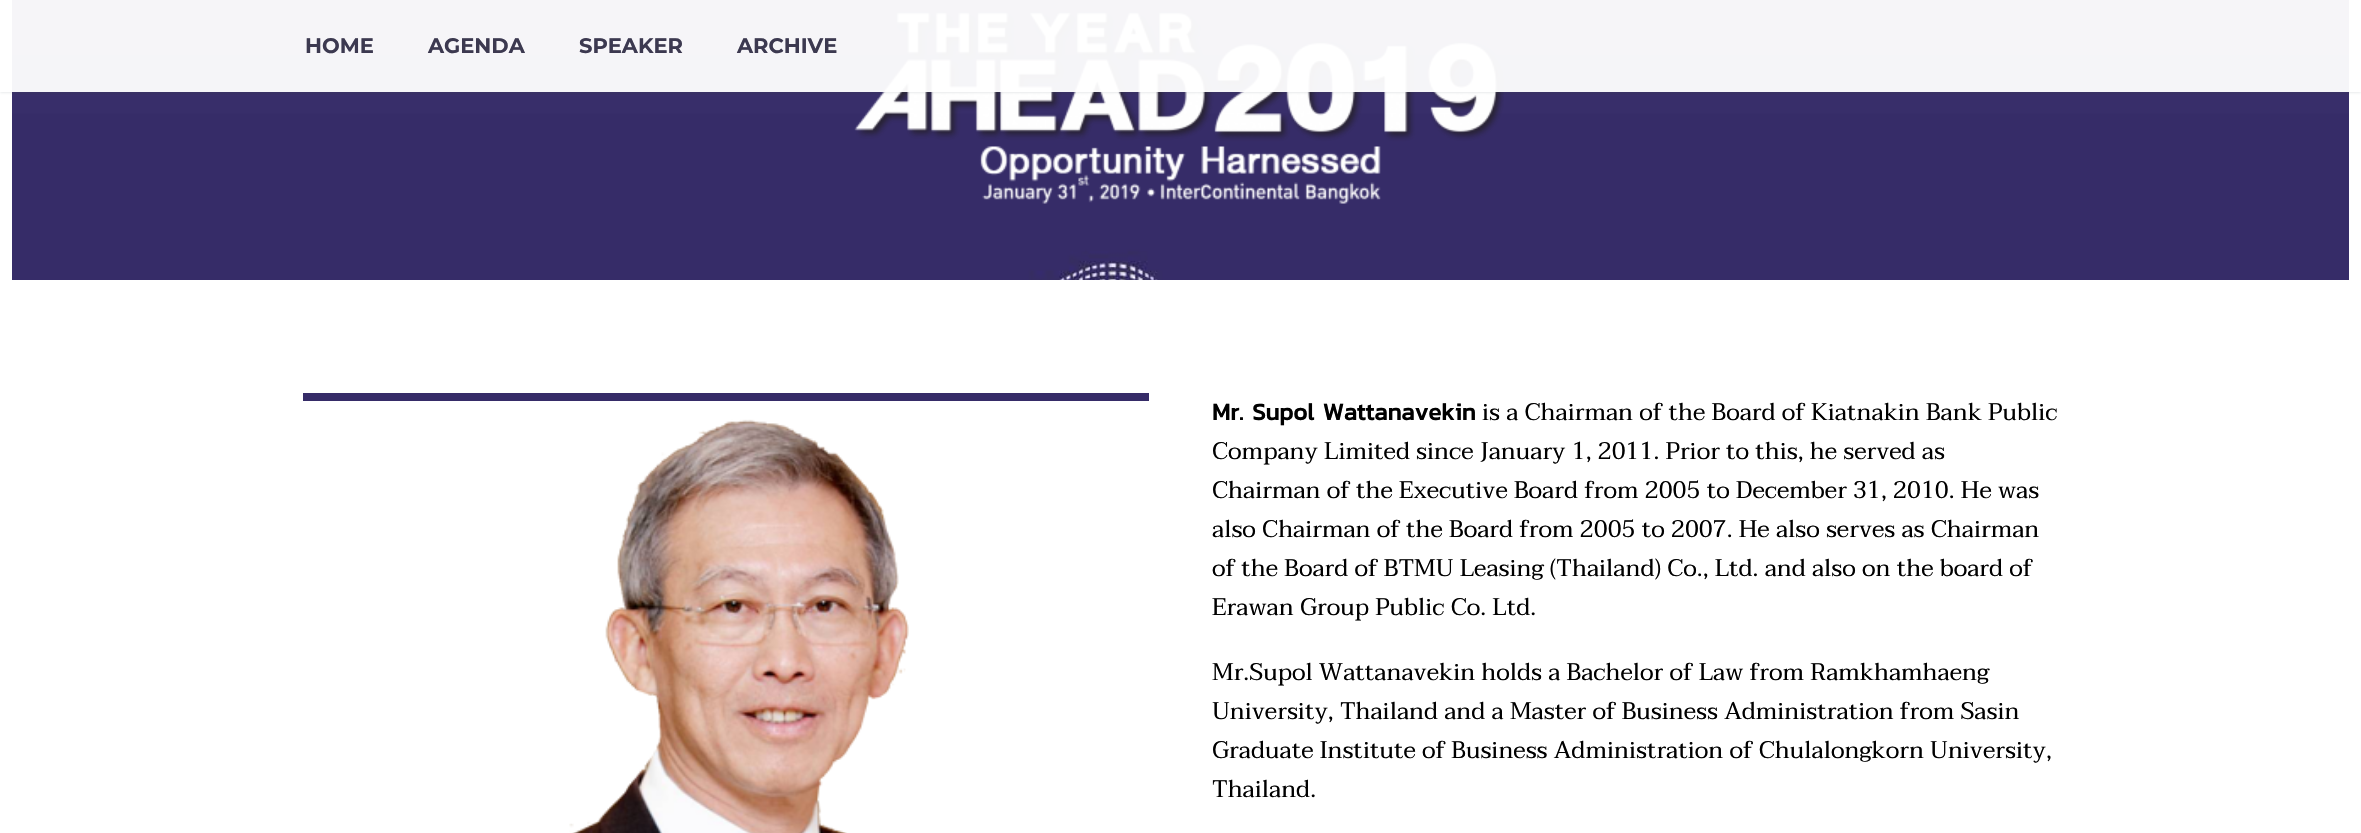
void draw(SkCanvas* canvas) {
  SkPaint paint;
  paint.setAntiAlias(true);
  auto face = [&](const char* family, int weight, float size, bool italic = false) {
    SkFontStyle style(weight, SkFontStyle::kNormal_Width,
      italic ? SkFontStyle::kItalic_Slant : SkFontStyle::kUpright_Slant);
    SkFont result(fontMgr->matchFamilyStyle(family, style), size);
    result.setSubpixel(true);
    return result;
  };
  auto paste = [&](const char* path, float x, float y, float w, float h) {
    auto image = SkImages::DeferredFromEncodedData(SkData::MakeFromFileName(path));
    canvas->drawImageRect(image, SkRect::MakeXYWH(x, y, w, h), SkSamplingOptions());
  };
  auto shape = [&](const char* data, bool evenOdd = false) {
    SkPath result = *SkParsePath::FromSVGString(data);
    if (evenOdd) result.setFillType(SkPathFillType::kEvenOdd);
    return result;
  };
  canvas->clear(0xffffffff);
  paste("img/1.png", 12, 0, 2337, 280);
  paste("img/2.png", 854, 12, 650, 192);
  canvas->save();
  canvas->clipPath(shape("M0 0H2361V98H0ZM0 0H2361V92H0Z", true), true);
  paint.setColor(0x33384554);
  paint.setMaskFilter(SkMaskFilter::MakeBlur(kNormal_SkBlurStyle, 1.5f));
  canvas->drawRect(SkRect::MakeXYWH(0, 0, 2361, 92), paint);
  paint.setMaskFilter(nullptr);
  canvas->restore();
  paint.setColor(0xf2ffffff);
  canvas->drawRect(SkRect::MakeXYWH(0, 0, 2361, 92), paint);
  paint.setColor(0xff362c68);
  canvas->drawRect(SkRect::MakeXYWH(303, 393, 846, 8), paint);
  paste("img/3.png", 569, 419, 340, 414);
  auto f0 = face("Montserrat", 700, 21);
  paint.setColor(0xff3c3950);
  {
    const struct { const char* s; float x, y; } items[] = {
      {"HOME", 305, 53},
      {"AGENDA", 428, 53},
      {"SPEAKER", 579, 53},
      {"ARCHIVE", 737, 53},
    };
    for (auto [s, x, y] : items) {
      canvas->drawString(s, x, y, f0, paint);
    }
  }
  auto f1 = face("Kanit", 700, 24);
  paint.setColor(0xff000000);
  canvas->drawString("Mr. Supol Wattanavekin", 1212, 420, f1, paint);
  auto f2 = face("Taviraj", 400, 24);
  {
    const struct { const char* s; float x, y; } items[] = {
      {"is a Chairman of the Board of Kiatnakin Bank Public", 1482, 420},
      {"Company Limited since January 1, 2011. Prior to this, he served as", 1212, 459},
      {"Chairman of the Executive Board from 2005 to December 31, 2010. He was", 1212, 498},
      {"also Chairman of the Board from 2005 to 2007. He also serves as Chairman", 1212, 537},
      {"of the Board of BTMU Leasing (Thailand) Co., Ltd. and also on the board of", 1212, 576},
      {"Erawan Group Public Co. Ltd.", 1212, 615},
      {"Mr.Supol Wattanavekin holds a Bachelor of Law from Ramkhamhaeng", 1212, 680},
      {"University, Thailand and a Master of Business Administration from Sasin", 1212, 719},
      {"Graduate Institute of Business Administration of Chulalongkorn University,", 1212, 758},
      {"Thailand.", 1212, 797},
    };
    for (auto [s, x, y] : items) {
      canvas->drawString(s, x, y, f2, paint);
    }
  }
}
